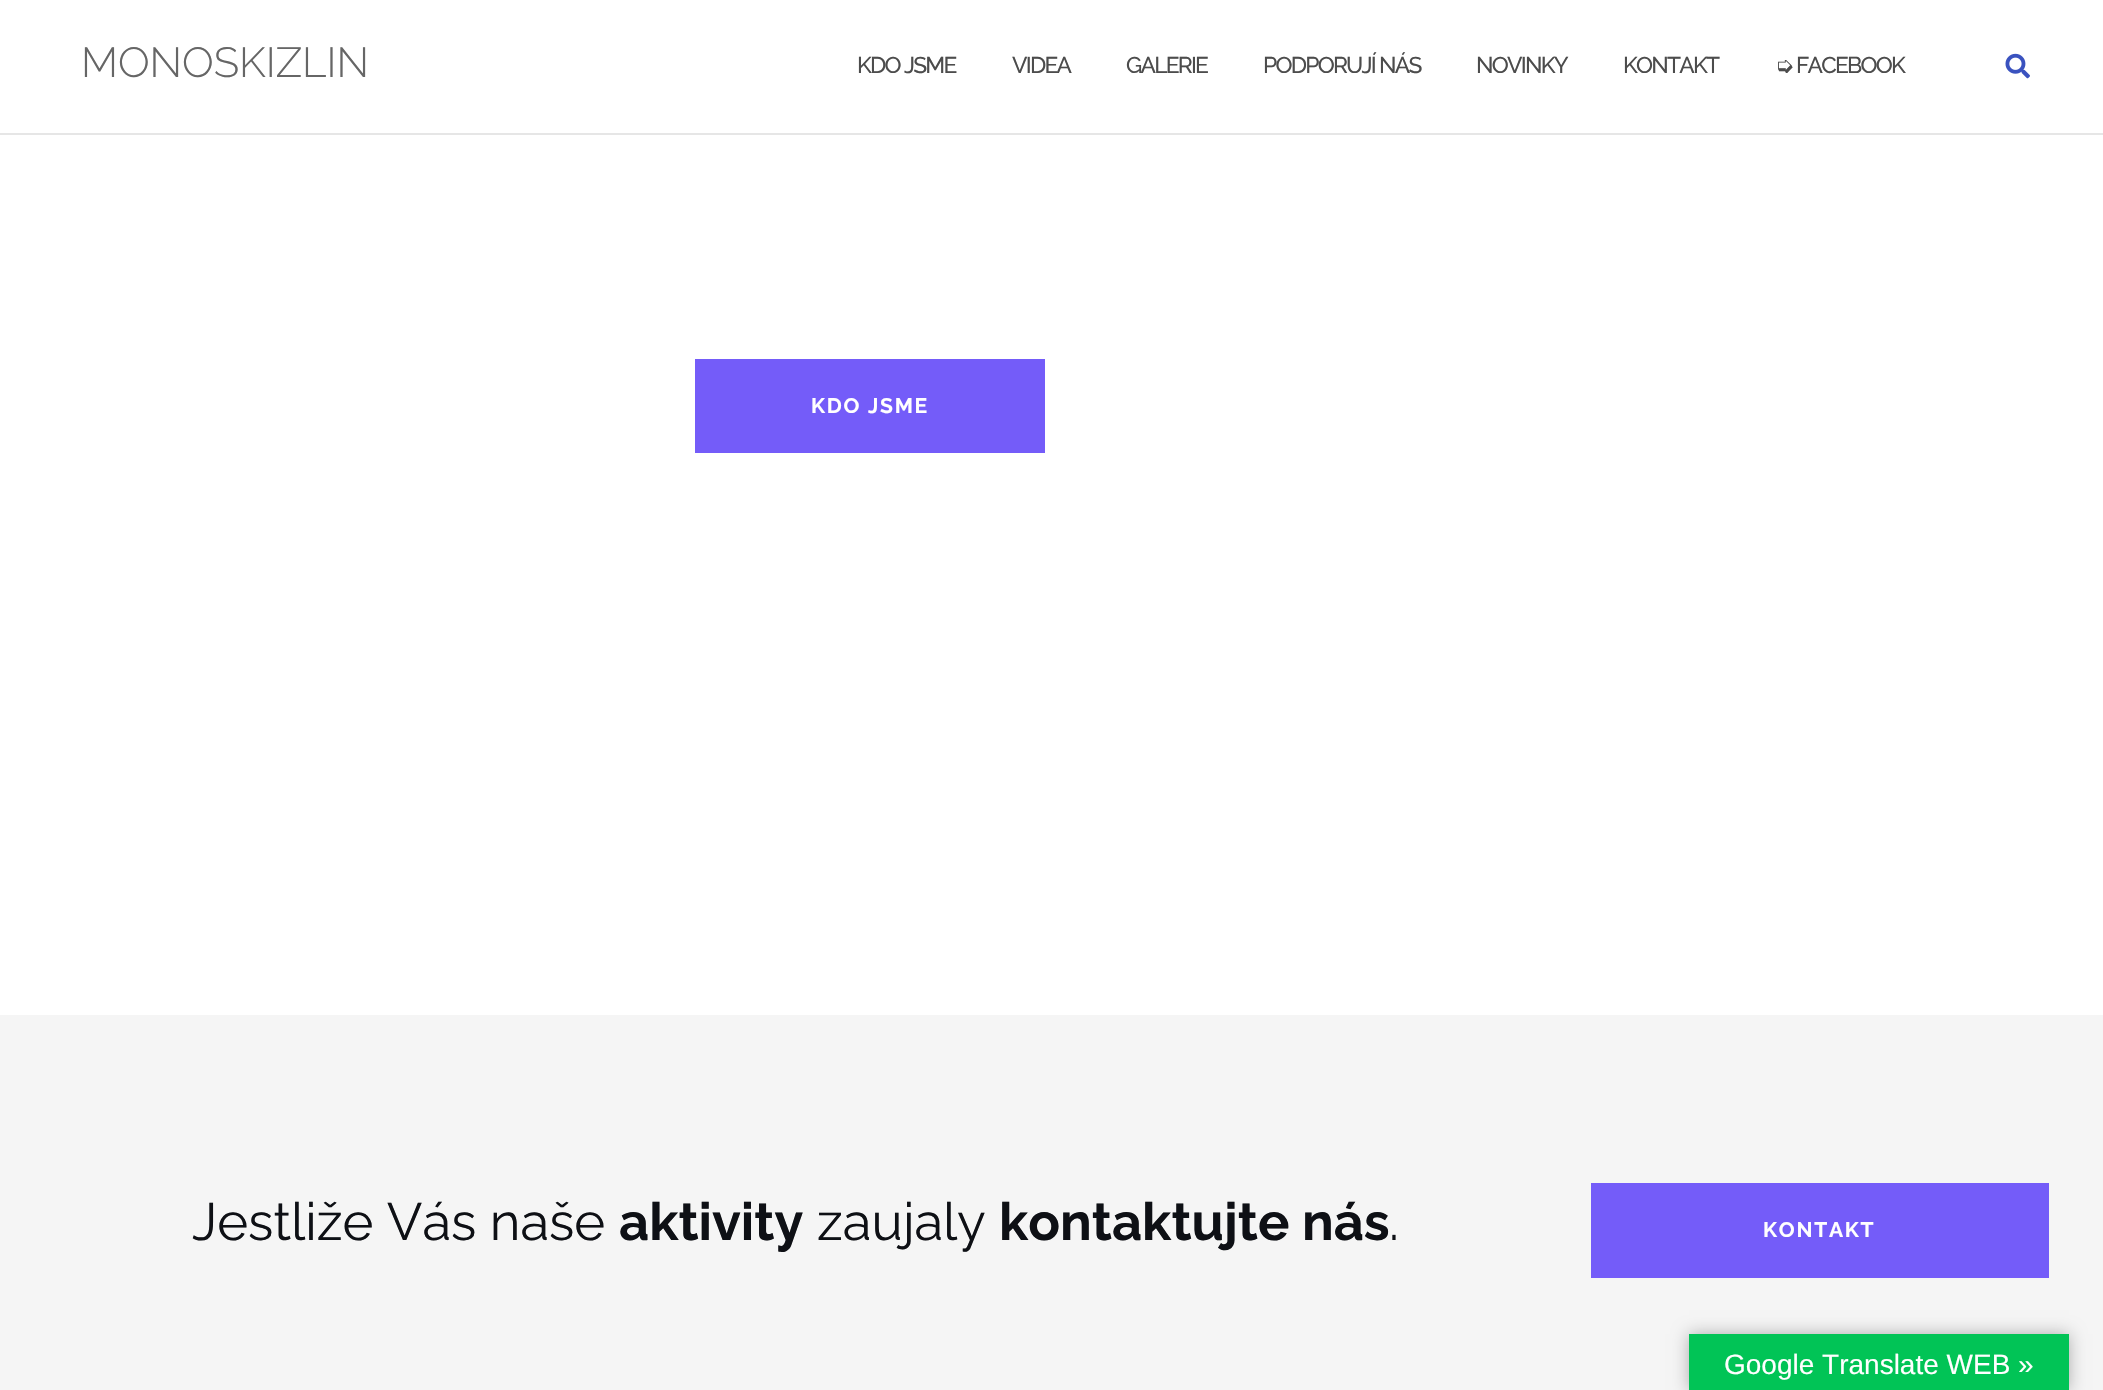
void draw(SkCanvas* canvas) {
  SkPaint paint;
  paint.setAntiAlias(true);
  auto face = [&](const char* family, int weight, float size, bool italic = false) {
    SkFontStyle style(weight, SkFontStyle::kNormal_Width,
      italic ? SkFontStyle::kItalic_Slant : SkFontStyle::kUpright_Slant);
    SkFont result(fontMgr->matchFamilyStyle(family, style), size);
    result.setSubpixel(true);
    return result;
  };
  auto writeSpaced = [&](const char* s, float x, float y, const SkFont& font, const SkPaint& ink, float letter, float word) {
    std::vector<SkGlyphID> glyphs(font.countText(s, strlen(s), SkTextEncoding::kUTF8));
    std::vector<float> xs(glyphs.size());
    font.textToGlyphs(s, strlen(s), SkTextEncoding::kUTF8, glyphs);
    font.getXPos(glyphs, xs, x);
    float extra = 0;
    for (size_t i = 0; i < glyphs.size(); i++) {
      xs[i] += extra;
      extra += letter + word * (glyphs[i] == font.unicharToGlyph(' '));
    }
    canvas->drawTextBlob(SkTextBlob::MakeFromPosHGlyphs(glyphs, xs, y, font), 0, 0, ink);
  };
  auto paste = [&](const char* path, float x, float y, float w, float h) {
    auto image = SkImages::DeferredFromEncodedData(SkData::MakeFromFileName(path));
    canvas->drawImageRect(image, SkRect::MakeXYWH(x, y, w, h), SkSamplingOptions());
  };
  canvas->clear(0xffffffff);
  paint.setColor(0xffe6e6e6);
  canvas->drawRect(SkRect::MakeXYWH(0, 133, 2103, 2), paint);
  paste("img/1.png", 2005, 53, 25, 26);
  {
    const struct { float x, y, w, h; SkColor color; } items[] = {
      {695, 359, 350, 94, 0xff745cf9},
      {0, 1015, 2103, 375, 0xfff5f5f5},
      {1591, 1183, 458, 95, 0xff745cf9},
    };
    for (auto [x, y, w, h, color] : items) {
      paint.setColor(color);
      canvas->drawRect(SkRect::MakeXYWH(x, y, w, h), paint);
    }
  }
  paint.setColor(0x4d000000);
  paint.setMaskFilter(SkMaskFilter::MakeBlur(kNormal_SkBlurStyle, 8));
  canvas->drawRect(SkRect::MakeXYWH(1689, 1334, 380, 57), paint);
  paint.setMaskFilter(nullptr);
  paint.setColor(0xff01c456);
  canvas->drawRect(SkRect::MakeXYWH(1689, 1334, 380, 56), paint);
  auto f0 = face("Raleway", 300, 42);
  paint.setColor(0xff666666);
  canvas->drawString("MONOSKIZLIN", 81, 77, f0, paint);
  auto f1 = face("Raleway", 500, 22.75f);
  paint.setColor(0xff4c4c4c);
  {
    const struct { const char* s; float x, y; } items[] = {
      {"KDO JSME", 857, 73},
      {"VIDEA", 1012, 73},
      {"GALERIE", 1126, 73},
      {"PODPORUJÍ NÁS", 1263, 73},
      {"NOVINKY", 1476, 73},
      {"KONTAKT", 1623, 73},
    };
    for (auto [s, x, y] : items) {
      writeSpaced(s, x, y, f1, paint, -1.75f, 0);
    }
  }
  auto f2 = face("DejaVu Sans", 400, 22.75f);
  writeSpaced("➭", 1775, 73, f2, paint, -1.75f, 0);
  writeSpaced("FACEBOOK", 1796, 73, f1, paint, -1.75f, 0);
  auto f3 = face("Raleway", 700, 21);
  paint.setColor(0xffffffff);
  writeSpaced("KDO JSME", 811, 413, f3, paint, 1.75f, 0);
  auto f4 = face("Raleway", 400, 52.5f);
  paint.setColor(0xff0e1015);
  canvas->drawString("Jestliže Vás naše", 192, 1240, f4, paint);
  auto f5 = face("Raleway", 700, 52.5f);
  canvas->drawString("aktivity", 619, 1240, f5, paint);
  canvas->drawString("zaujaly", 817, 1240, f4, paint);
  canvas->drawString("kontaktujte nás", 999, 1240, f5, paint);
  canvas->drawString(".", 1389, 1240, f4, paint);
  paint.setColor(0xffffffff);
  writeSpaced("KONTAKT", 1763, 1237, f3, paint, 1.75f, 0);
  auto f6 = face("Liberation Sans", 400, 28);
  canvas->drawString("Google Translate WEB »", 1724, 1374, f6, paint);
}
